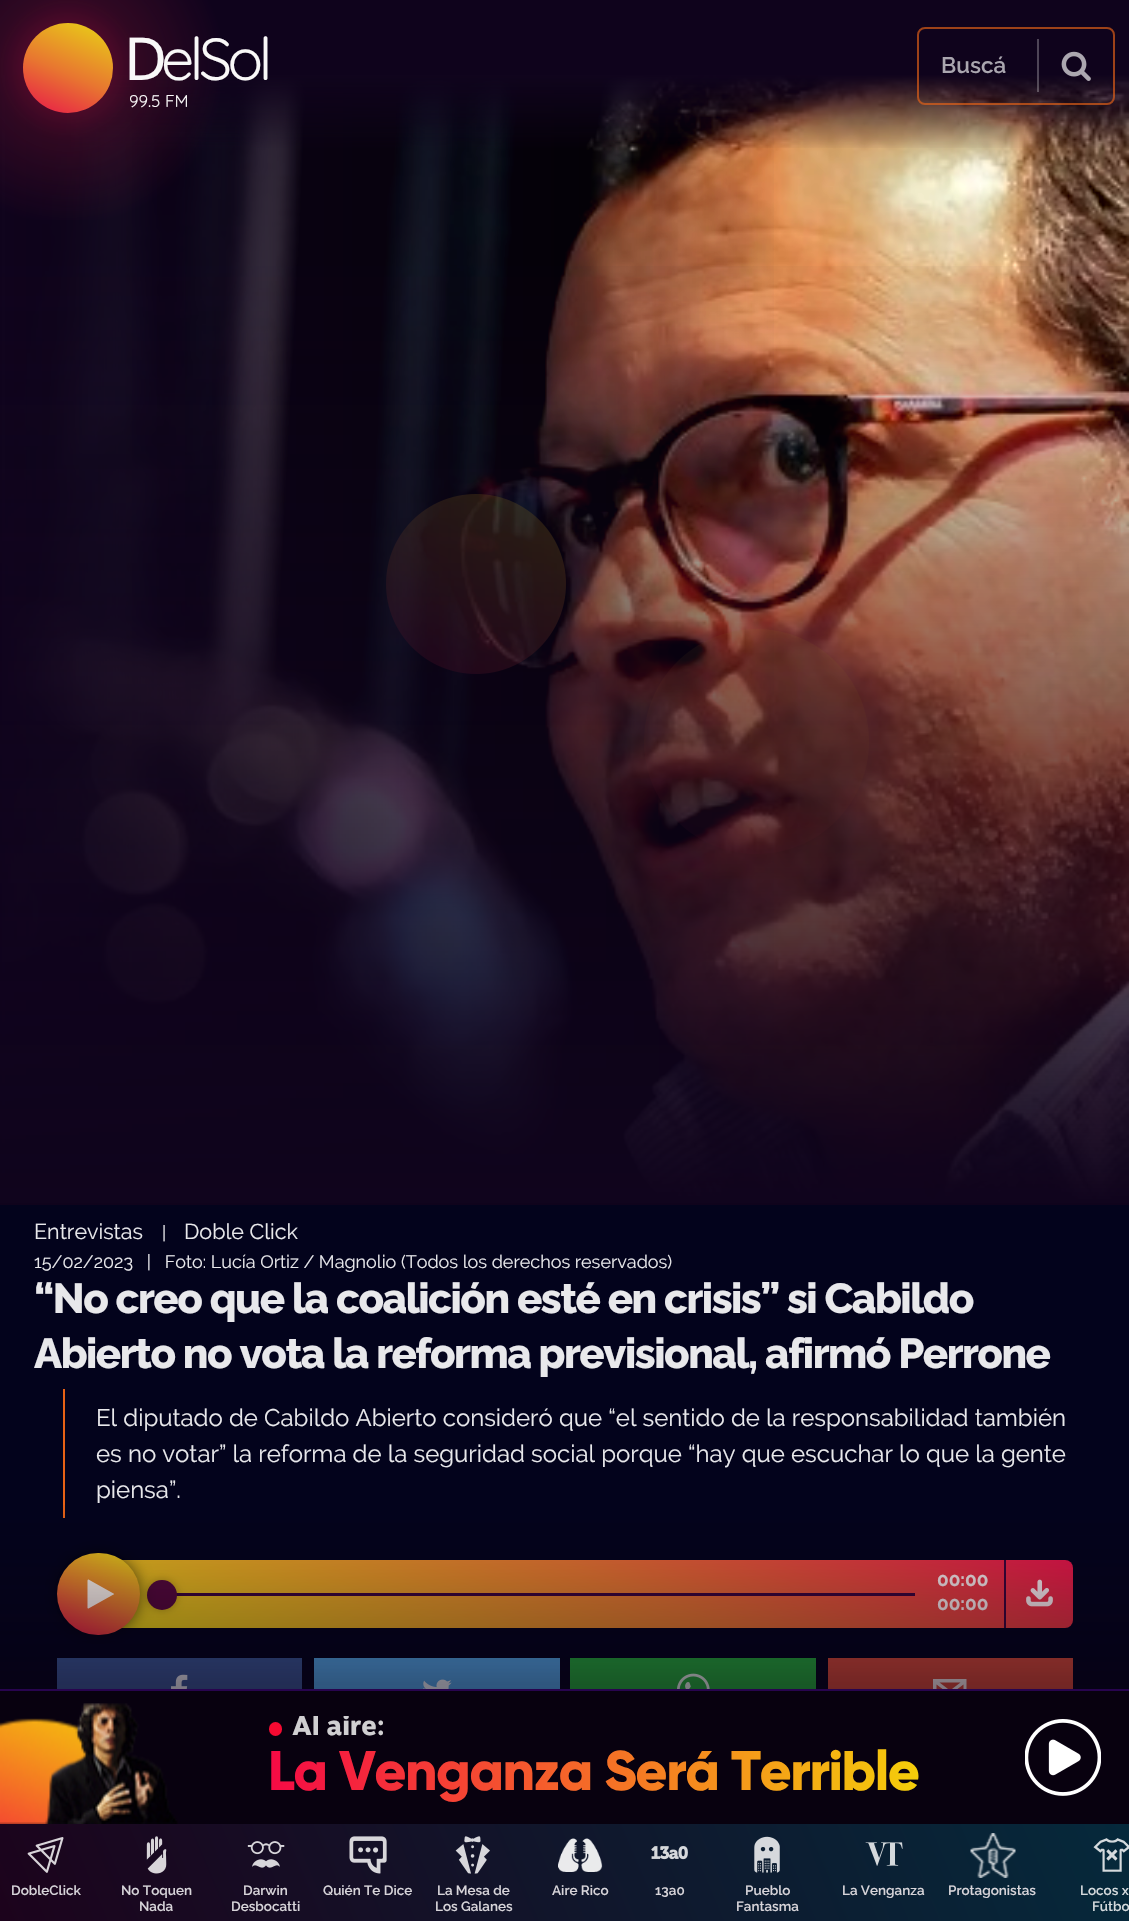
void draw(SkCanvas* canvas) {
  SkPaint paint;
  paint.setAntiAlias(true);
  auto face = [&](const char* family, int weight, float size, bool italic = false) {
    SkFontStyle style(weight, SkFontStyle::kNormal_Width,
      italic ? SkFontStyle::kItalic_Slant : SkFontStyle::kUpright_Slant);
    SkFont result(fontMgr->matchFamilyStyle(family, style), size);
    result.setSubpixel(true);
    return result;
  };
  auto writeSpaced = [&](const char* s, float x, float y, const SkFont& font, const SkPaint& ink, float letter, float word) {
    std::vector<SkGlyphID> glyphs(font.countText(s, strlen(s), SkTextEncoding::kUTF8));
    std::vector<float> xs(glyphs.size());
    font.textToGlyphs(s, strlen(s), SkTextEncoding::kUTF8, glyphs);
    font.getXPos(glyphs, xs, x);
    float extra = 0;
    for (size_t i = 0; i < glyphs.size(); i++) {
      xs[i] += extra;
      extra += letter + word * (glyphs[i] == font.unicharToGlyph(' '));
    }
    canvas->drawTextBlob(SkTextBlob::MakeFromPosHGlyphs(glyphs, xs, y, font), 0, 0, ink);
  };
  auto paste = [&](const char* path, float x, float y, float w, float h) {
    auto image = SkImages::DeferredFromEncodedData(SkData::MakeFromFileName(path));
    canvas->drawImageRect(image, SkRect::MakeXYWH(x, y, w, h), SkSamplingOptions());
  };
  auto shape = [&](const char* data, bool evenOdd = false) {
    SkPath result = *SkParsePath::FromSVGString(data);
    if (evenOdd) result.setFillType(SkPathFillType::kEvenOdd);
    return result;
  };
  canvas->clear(0xff03031c);
  paint.setColor(0xff0f031c);
  canvas->drawRect(SkRect::MakeXYWH(0, 0, 1129, 75), paint);
  paste("img/2.png", 5, 75, 1124, 1124);
  {
    const SkColor colors[] = {0xff0f031c, 0x000f031c};
    const float stops[] = {0, 1};
    const SkPoint ends[] = {{0, 640}, {791, 640}};
    paint.setShader(SkGradientShader::MakeLinear(ends, colors, stops, 2, SkTileMode::kClamp));
    paint.setAlpha(255);
  }
  canvas->drawRect(SkRect::MakeXYWH(0, 75, 774, 1124), paint);
  {
    const SkColor colors[] = {0x000f031c, 0xff0f031c};
    const float stops[] = {0, 1};
    const SkPoint ends[] = {{565, 150}, {565, 75}};
    paint.setShader(SkGradientShader::MakeLinear(ends, colors, stops, 2, SkTileMode::kClamp));
    paint.setAlpha(255);
  }
  canvas->drawRect(SkRect::MakeXYWH(71, 75, 1058, 73), paint);
  {
    const SkColor colors[] = {0x8fe8154a, 0x4f7a112f, 0x007a112f};
    const float stops[] = {0, 0.45f, 1};
    paint.setShader(SkGradientShader::MakeRadial({68, 68}, 158, colors, stops, 3, SkTileMode::kClamp));
    paint.setAlpha(255);
  }
  canvas->drawRect(SkRect::MakeXYWH(0, 0, 220, 220), paint);
  {
    const SkColor colors[] = {0xffe8154a, 0xffe87630, 0xffe8d615};
    const float stops[] = {0, 0.45f, 1};
    const SkPoint ends[] = {{44, 122}, {91, 13}};
    paint.setShader(SkGradientShader::MakeLinear(ends, colors, stops, 3, SkTileMode::kClamp));
    paint.setAlpha(255);
  }
  canvas->drawCircle(68, 68, 45, paint);
  paint.setStroke(true);
  paint.setStrokeWidth(2);
  paint.setShader(nullptr);
  paint.setColor(0xa6e86215);
  canvas->drawRoundRect(SkRect::MakeXYWH(918, 28, 196, 76), 7, 7, paint);
  paint.setStroke(false);
  paint.setColor(0x42ffffff);
  canvas->drawRect(SkRect::MakeXYWH(1037, 39, 2, 53), paint);
  paste("img/1.png", 1061, 51, 30, 30);
  {
    const SkColor colors[] = {0xff0f031c, 0x000f031c};
    const float stops[] = {0, 1};
    const SkPoint ends[] = {{565, 1205}, {565, 245}};
    paint.setShader(SkGradientShader::MakeLinear(ends, colors, stops, 2, SkTileMode::kClamp));
    paint.setAlpha(255);
  }
  canvas->drawRect(SkRect::MakeXYWH(0, 266, 1129, 939), paint);
  paint.setShader(nullptr);
  paint.setColor(0xffe86215);
  canvas->drawRect(SkRect::MakeXYWH(63, 1389, 2, 129), paint);
  {
    const SkColor colors[] = {0xffe8d615, 0xffe87630, 0xffe8154a};
    const float stops[] = {0, 0.55f, 1};
    const SkPoint ends[] = {{497, 1798}, {670, 1389}};
    paint.setShader(SkGradientShader::MakeLinear(ends, colors, stops, 3, SkTileMode::kClamp));
    paint.setAlpha(255);
  }
  canvas->drawRoundRect(SkRect::MakeXYWH(95, 1560, 978, 68), 8, 8, paint);
  paint.setShader(nullptr);
  paint.setColor(0xff3b053b);
  canvas->drawRect(SkRect::MakeXYWH(176, 1593, 739, 3), paint);
  paint.setColor(0x42000000);
  paint.setMaskFilter(SkMaskFilter::MakeBlur(kNormal_SkBlurStyle, 4));
  canvas->drawRoundRect(SkRect::MakeXYWH(147, 1580, 30, 30), 15, 15, paint);
  paint.setMaskFilter(nullptr);
  paint.setColor(0xff54083b);
  canvas->drawCircle(162, 1595, 15, paint);
  paint.setColor(0xff3b5999);
  canvas->drawRect(SkRect::MakeXYWH(57, 1658, 245, 31), paint);
  paint.setColor(0x8f000000);
  paint.setMaskFilter(SkMaskFilter::MakeBlur(kNormal_SkBlurStyle, 7.5f));
  canvas->drawRoundRect(SkRect::MakeXYWH(57, 1553, 83, 82), 41, 41, paint);
  paint.setMaskFilter(nullptr);
  {
    const SkColor colors[] = {0xffe8154a, 0xffe87630, 0xffe8d615};
    const float stops[] = {0, 0.45f, 1};
    const SkPoint ends[] = {{77, 1644}, {119, 1544}};
    paint.setShader(SkGradientShader::MakeLinear(ends, colors, stops, 3, SkTileMode::kClamp));
    paint.setAlpha(255);
  }
  canvas->drawRoundRect(SkRect::MakeXYWH(57, 1553, 83, 82), 41, 41, paint);
  paint.setShader(nullptr);
  paint.setColor(0xe8ffffff);
  canvas->drawPath(shape("M113.5 1594.5C114 1594.5 114.5 1594 113.5 1593.5L88.5 1579.5H88L87.5 1580.5V1608L88 1608.5H88.5Z"), paint);
  paint.setColor(0xff3b053b);
  canvas->drawRect(SkRect::MakeXYWH(1004, 1560, 2, 68), paint);
  paste("img/3.png", 1026, 1579, 27, 28);
  paste("img/4.png", 171, 1674, 17, 15);
  paint.setColor(0xff55acee);
  canvas->drawRect(SkRect::MakeXYWH(314, 1658, 246, 31), paint);
  paste("img/5.png", 423, 1679, 29, 10);
  paint.setColor(0xff26b03d);
  canvas->drawRect(SkRect::MakeXYWH(570, 1658, 246, 31), paint);
  paste("img/6.png", 677, 1673, 33, 16);
  paint.setColor(0xffdd4b39);
  canvas->drawRect(SkRect::MakeXYWH(828, 1658, 245, 31), paint);
  paint.setColor(0xfffcefed);
  canvas->drawPath(shape("M933 1679H966.5V1702.5H933ZM950 1690.5L960.5 1682.5H939.5ZM936.5 1699.5H963.5V1684.5L950 1694.5L936.5 1684.5Z"), paint);
  paint.setColor(0xff08010f);
  canvas->drawRect(SkRect::MakeXYWH(0, 1691, 1129, 133), paint);
  paint.setColor(0xff28044f);
  canvas->drawRect(SkRect::MakeXYWH(0, 1689, 1129, 2), paint);
  paste("img/7.png", 0, 1703, 178, 121);
  paint.setColor(0xfff50a31);
  canvas->drawRoundRect(SkRect::MakeXYWH(269, 1722, 13, 14), 6.5f, 6.5f, paint);
  paste("img/8.png", 1025, 1719, 76, 77);
  {
    const SkColor colors[] = {0xff1c031c, 0xff05293b};
    const float stops[] = {0, 1};
    const SkPoint ends[] = {{69, 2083}, {1061, 1662}};
    paint.setShader(SkGradientShader::MakeLinear(ends, colors, stops, 2, SkTileMode::kClamp));
    paint.setAlpha(255);
  }
  canvas->drawRect(SkRect::MakeXYWH(0, 1824, 1129, 97), paint);
  paste("img/9.png", 27, 1837, 37, 36);
  paste("img/10.png", 146, 1836, 21, 38);
  paste("img/11.png", 247, 1841, 38, 27);
  paste("img/12.png", 349, 1836, 38, 38);
  paste("img/13.png", 455, 1836, 35, 38);
  paste("img/14.png", 558, 1838, 45, 34);
  paste("img/15.png", 651, 1846, 37, 14);
  paste("img/16.png", 754, 1836, 26, 37);
  paste("img/17.png", 865, 1842, 38, 24);
  paste("img/18.png", 970, 1833, 46, 45);
  paste("img/19.png", 1093, 1838, 36, 34);
  auto f0 = face("Noto Sans", 400, 59);
  paint.setShader(nullptr);
  paint.setColor(0xfff9f8f8);
  writeSpaced("D", 124, 80, f0, paint, -4.5f, 0);
  auto f1 = face("Quicksand", 400, 59);
  writeSpaced("elSol", 161, 80, f1, paint, -4.5f, 0);
  auto f2 = face("Quicksand", 400, 17);
  canvas->drawString("99.5 FM", 129, 107, f2, paint);
  auto f3 = face("Raleway", 600, 22.5f);
  paint.setColor(0xffaaa6af);
  canvas->drawString("Buscá", 941, 73, f3, paint);
  auto f4 = face("Raleway", 400, 21.5f);
  paint.setColor(0xffe8e8eb);
  canvas->drawString("Entrevistas", 34, 1239, f4, paint);
  auto f5 = face("Raleway", 400, 18);
  canvas->drawString("|", 162, 1239, f5, paint);
  canvas->drawString("Doble Click", 184, 1239, f4, paint);
  canvas->drawString("15/02/2023   |   Foto: Lucía Ortiz / Magnolio (Todos los derechos reservados)", 34, 1268, f5, paint);
  auto f6 = face("Raleway", 800, 42);
  writeSpaced("“No creo que la coalición esté en crisis” si Cabildo", 34, 1313, f6, paint, -1.5f, 0);
  writeSpaced("Abierto no vota la reforma previsional, afirmó Perrone", 34, 1368, f6, paint, -1.5f, 0);
  auto f7 = face("Raleway", 400, 24);
  {
    const struct { const char* s; float x, y; } items[] = {
      {"El diputado de Cabildo Abierto consideró que “el sentido de la responsabilidad también", 96, 1426},
      {"es no votar” la reforma de la seguridad social porque “hay que escuchar lo que la gente", 96, 1462},
      {"piensa”.", 96, 1498},
    };
    for (auto [s, x, y] : items) {
      canvas->drawString(s, x, y, f7, paint);
    }
  }
  auto f8 = face("Raleway", 700, 19);
  paint.setColor(0xfffdedee);
  canvas->drawString("00:00", 937, 1586, f8, paint);
  canvas->drawString("00:00", 937, 1610, f8, paint);
  {
    const SkColor colors[] = {0x0008010f, 0x8208010f};
    const float stops[] = {0, 1};
    const SkPoint ends[] = {{565, 1497}, {565, 1689}};
    paint.setShader(SkGradientShader::MakeLinear(ends, colors, stops, 2, SkTileMode::kClamp));
    paint.setAlpha(255);
  }
  canvas->drawRect(SkRect::MakeXYWH(0, 1505, 1129, 184), paint);
  canvas->save();
  canvas->clipRect(SkRect::MakeXYWH(269, 1716, 726, 27));
  auto f9 = face("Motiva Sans", 800, 27);
  paint.setShader(nullptr);
  paint.setColor(0xffd0cfd1);
  canvas->drawString("Al aire:", 292, 1735, f9, paint);
  canvas->restore();
  auto f10 = face("Gilroy", 800, 55.75f);
  {
    const SkColor colors[] = {0xfff50a45, 0xfff5ce0a};
    const float stops[] = {0, 1};
    const SkPoint ends[] = {{268, 1773}, {918, 1773}};
    paint.setShader(SkGradientShader::MakeLinear(ends, colors, stops, 2, SkTileMode::kClamp));
    paint.setAlpha(255);
  }
  writeSpaced("La Venganza Será Terrible", 268, 1790, f10, paint, -1.5f, 0);
  auto f11 = face("Raleway", 600, 13.5f);
  paint.setShader(nullptr);
  paint.setColor(0xffd7d4d9);
  {
    const struct { const char* s; float x, y; } items[] = {
      {"DobleClick", 11, 1895},
      {"No Toquen", 121, 1895},
      {"Nada", 139, 1911},
      {"Darwin", 243, 1895},
      {"Desbocatti", 231, 1911},
      {"Quién Te Dice", 323, 1895},
      {"La Mesa de", 437, 1895},
      {"Los Galanes", 435, 1911},
      {"Aire Rico", 552, 1895},
      {"13a0", 655, 1895},
      {"Pueblo", 745, 1895},
      {"Fantasma", 736, 1911},
      {"La Venganza", 842, 1895},
      {"Protagonistas", 948, 1895},
    };
    for (auto [s, x, y] : items) {
      canvas->drawString(s, x, y, f11, paint);
    }
  }
  paint.setColor(0xffd5dadd);
  canvas->drawString("Locos x", 1080, 1895, f11, paint);
  canvas->drawString("Fútbo", 1092, 1911, f11, paint);
}
